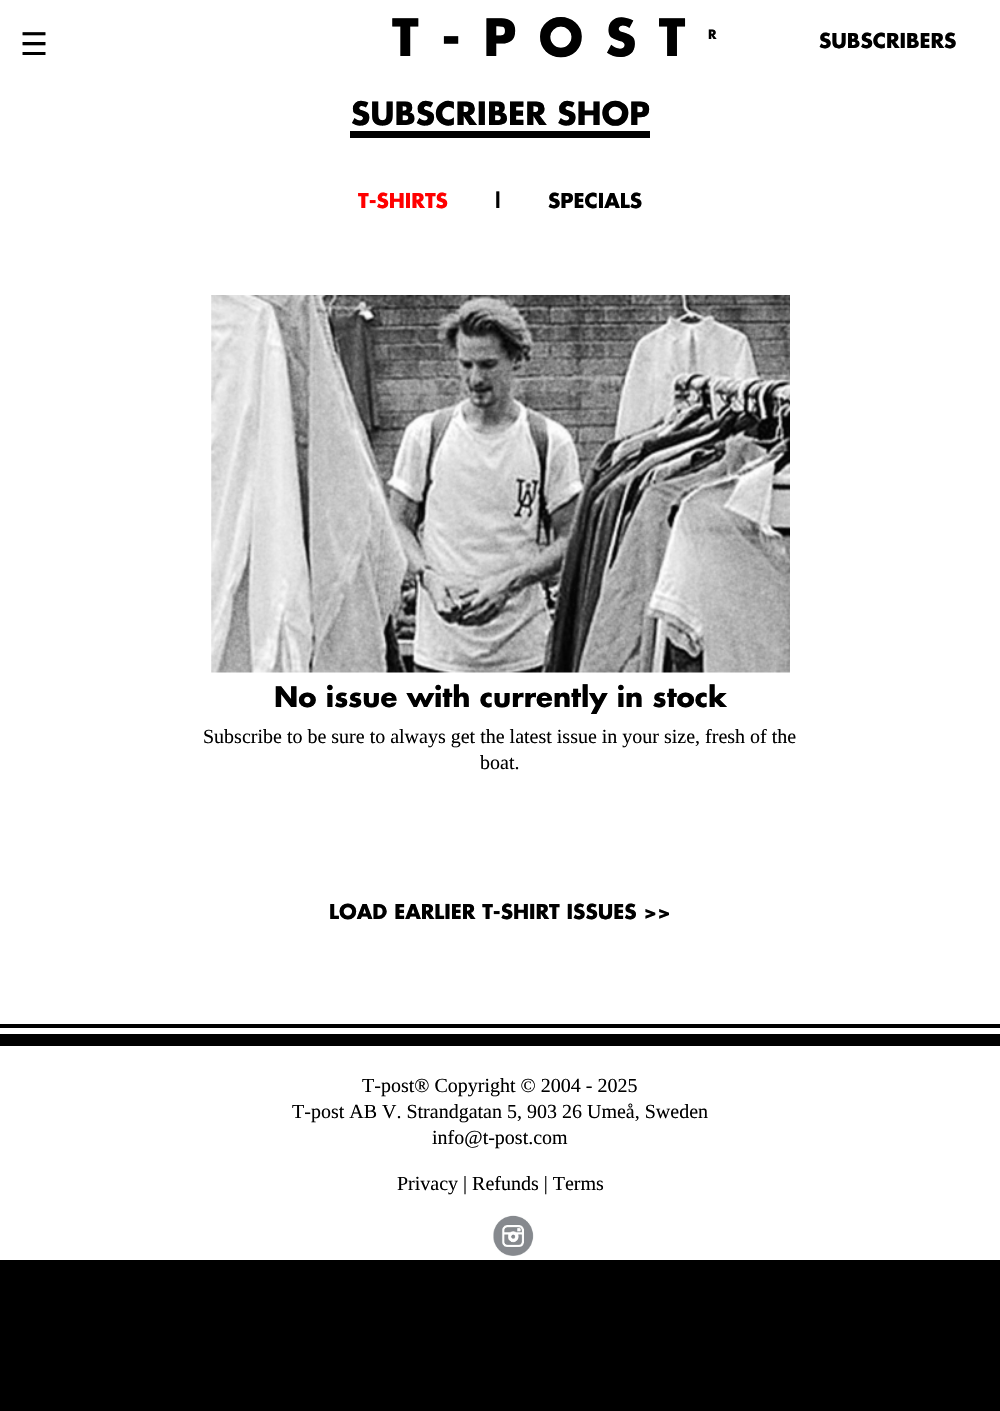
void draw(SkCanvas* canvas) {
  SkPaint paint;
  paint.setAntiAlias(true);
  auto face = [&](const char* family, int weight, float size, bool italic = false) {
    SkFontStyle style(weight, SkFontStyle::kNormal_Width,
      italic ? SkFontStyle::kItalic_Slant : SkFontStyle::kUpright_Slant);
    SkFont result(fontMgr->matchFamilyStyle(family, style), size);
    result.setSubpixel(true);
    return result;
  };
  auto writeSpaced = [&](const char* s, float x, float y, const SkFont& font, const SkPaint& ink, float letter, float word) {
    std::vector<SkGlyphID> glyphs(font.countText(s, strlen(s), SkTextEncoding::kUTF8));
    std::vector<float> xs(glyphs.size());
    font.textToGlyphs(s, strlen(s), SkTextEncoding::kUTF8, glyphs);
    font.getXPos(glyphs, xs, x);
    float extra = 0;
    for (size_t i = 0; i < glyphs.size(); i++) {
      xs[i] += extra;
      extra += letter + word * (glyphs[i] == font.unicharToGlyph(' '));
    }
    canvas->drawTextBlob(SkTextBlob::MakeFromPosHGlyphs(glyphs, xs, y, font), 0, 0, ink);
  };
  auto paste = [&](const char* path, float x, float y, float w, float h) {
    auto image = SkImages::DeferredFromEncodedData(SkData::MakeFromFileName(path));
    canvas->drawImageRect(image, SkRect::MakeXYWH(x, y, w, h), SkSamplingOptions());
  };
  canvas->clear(0xff000000);
  paint.setColor(0xffffffff);
  canvas->drawRect(SkRect::MakeXYWH(0, 0, 1000, 1260), paint);
  paint.setColor(0xff000000);
  canvas->drawRect(SkRect::MakeXYWH(350, 131, 300, 7), paint);
  paste("img/1.png", 211, 295, 579, 378);
  canvas->drawRect(SkRect::MakeXYWH(0, 1024, 1000, 4), paint);
  canvas->drawRect(SkRect::MakeXYWH(0, 1034, 1000, 12), paint);
  paste("img/2.png", 493, 1215, 41, 41);
  auto f0 = face("DejaVu Sans", 400, 31.25f);
  canvas->drawString("☰", 20, 55, f0, paint);
  auto f1 = face("Futura", 700, 50);
  writeSpaced("T-POST", 392, 56, f1, paint, 22.5f, 0);
  auto f2 = face("Futura", 700, 12.5f);
  writeSpaced("R", 708, 39, f2, paint, 22.5f, 0);
  auto f3 = face("Futura", 700, 20);
  canvas->drawString("SUBSCRIBERS", 819, 48, f3, paint);
  auto f4 = face("Futura", 700, 31.25f);
  canvas->drawString("SUBSCRIBER SHOP", 351, 125, f4, paint);
  paint.setColor(0xffff0000);
  canvas->drawString("T-SHIRTS", 358, 208, f3, paint);
  paint.setColor(0xff000000);
  canvas->drawString("|", 492, 208, f3, paint);
  canvas->drawString("SPECIALS", 548, 208, f3, paint);
  auto f5 = face("Futura", 700, 27.5f);
  canvas->drawString("No issue with currently in stock", 274, 707, f5, paint);
  auto f6 = face("Liberation Serif", 400, 20);
  canvas->drawString("Subscribe to be sure to always get the latest issue in your size, fresh of the", 203, 743, f6, paint);
  canvas->drawString("boat.", 480, 769, f6, paint);
  canvas->drawString("LOAD EARLIER T-SHIRT ISSUES >>", 329, 919, f3, paint);
  {
    const struct { const char* s; float x, y; } items[] = {
      {"T-post® Copyright © 2004 - 2025", 362, 1092},
      {"T-post AB V. Strandgatan 5, 903 26 Umeå, Sweden", 292, 1118},
      {"info@t-post.com", 432, 1144},
      {"Privacy | Refunds | Terms", 397, 1190},
    };
    for (auto [s, x, y] : items) {
      canvas->drawString(s, x, y, f6, paint);
    }
  }
}
